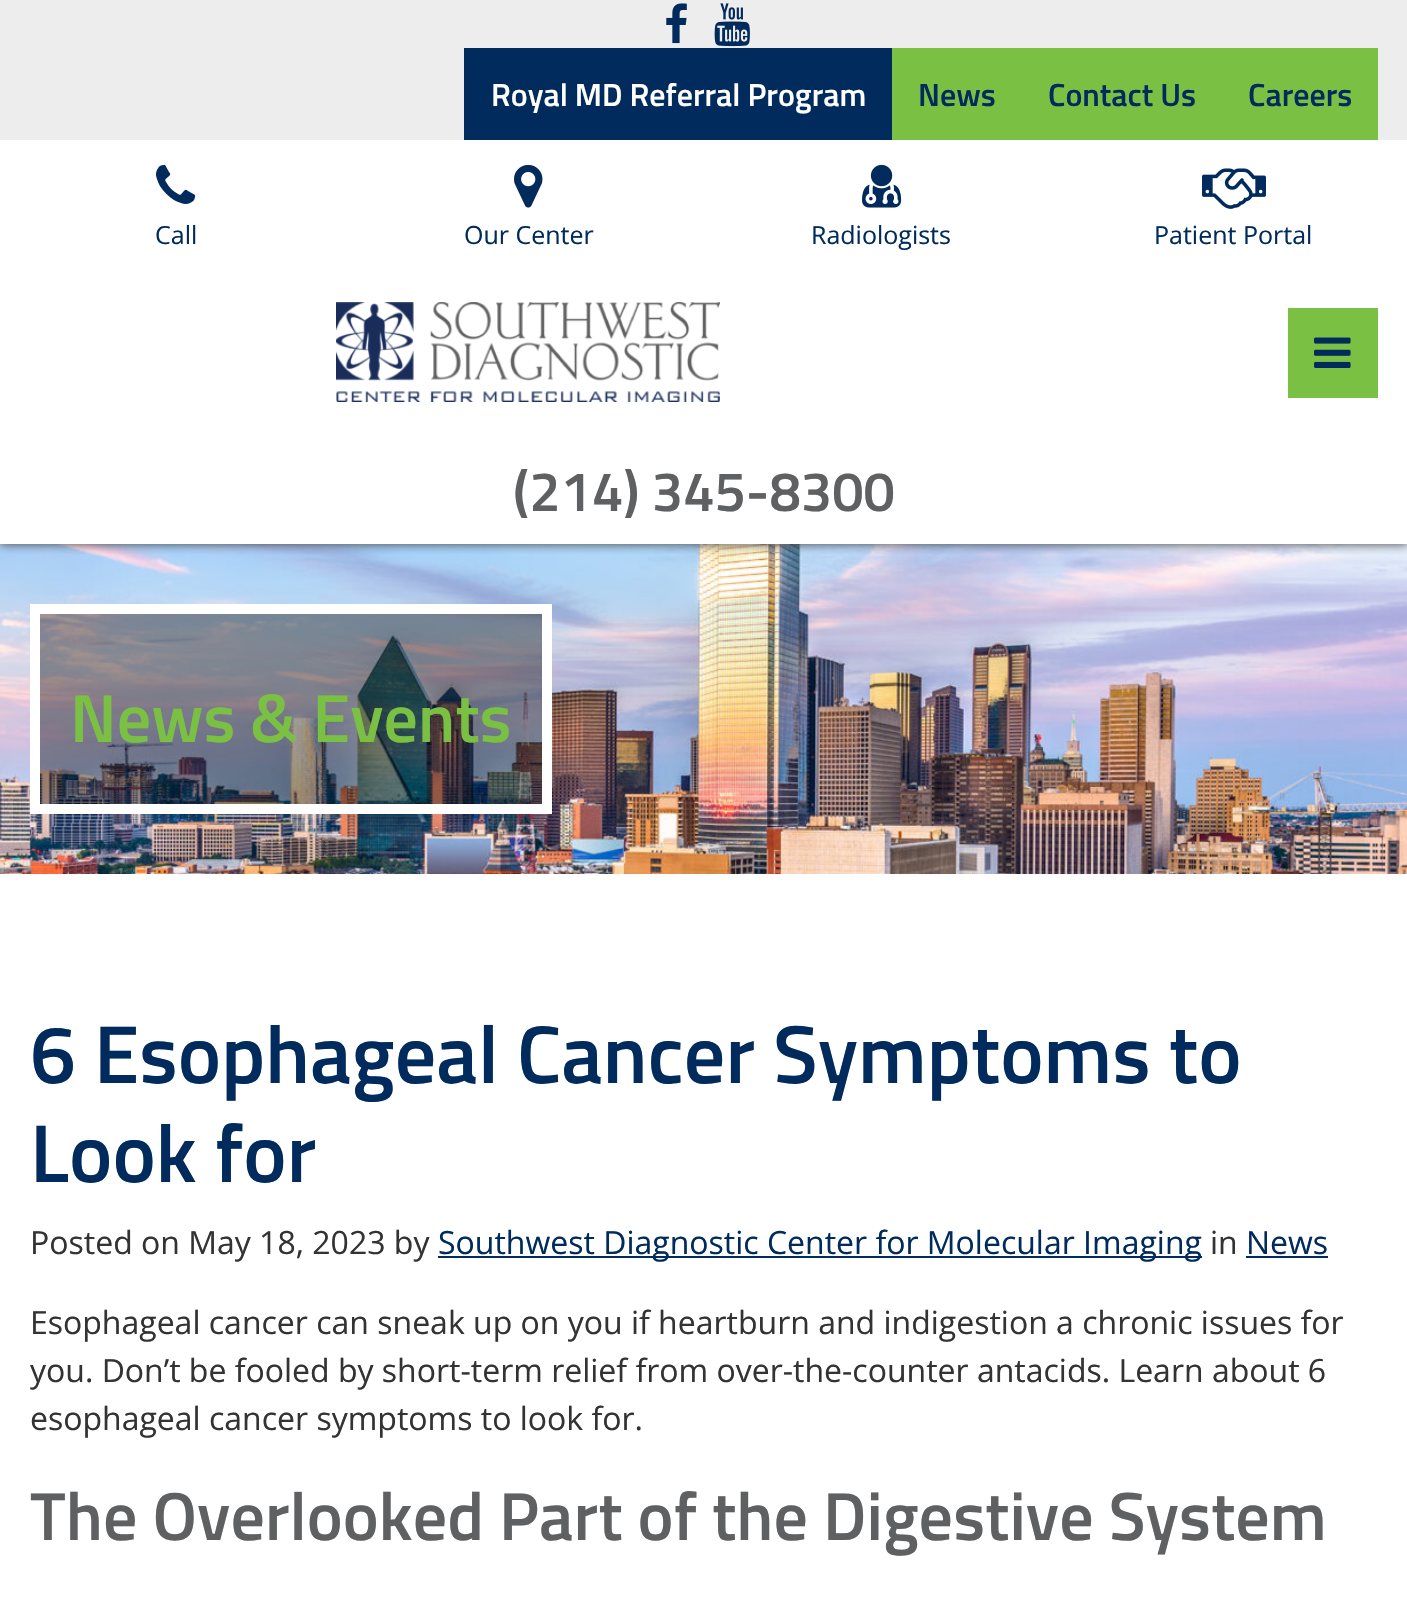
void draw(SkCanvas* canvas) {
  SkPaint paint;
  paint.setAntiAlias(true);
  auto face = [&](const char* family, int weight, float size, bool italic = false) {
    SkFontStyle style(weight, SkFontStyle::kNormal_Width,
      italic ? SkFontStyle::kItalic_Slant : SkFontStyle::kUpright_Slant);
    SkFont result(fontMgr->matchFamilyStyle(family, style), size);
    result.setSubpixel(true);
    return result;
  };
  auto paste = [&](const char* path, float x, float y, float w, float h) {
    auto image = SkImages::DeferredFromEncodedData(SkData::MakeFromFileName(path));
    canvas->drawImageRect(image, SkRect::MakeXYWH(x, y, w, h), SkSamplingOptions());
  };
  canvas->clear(0xffffffff);
  paste("img/9.png", 0, 544, 1407, 330);
  canvas->save();
  canvas->clipRect(SkRect::MakeXYWH(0, 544, 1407, 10));
  paint.setColor(0xff434343);
  paint.setMaskFilter(SkMaskFilter::MakeBlur(kNormal_SkBlurStyle, 5));
  canvas->drawRect(SkRect::MakeXYWH(0, 0, 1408, 544), paint);
  paint.setMaskFilter(nullptr);
  canvas->restore();
  paint.setColor(0xffededed);
  canvas->drawRect(SkRect::MakeXYWH(0, 0, 1407, 140), paint);
  paste("img/1.png", 666, 3, 21, 41);
  paste("img/2.png", 714, 3, 36, 44);
  paint.setColor(0xff002b5c);
  canvas->drawRect(SkRect::MakeXYWH(464, 48, 428, 92), paint);
  paint.setColor(0xff7ac143);
  canvas->drawRect(SkRect::MakeXYWH(892, 48, 486, 92), paint);
  paste("img/3.png", 156, 164, 40, 40);
  paste("img/4.png", 514, 164, 29, 44);
  paste("img/5.png", 862, 164, 40, 44);
  paste("img/6.png", 1202, 168, 64, 41);
  paste("img/7.png", 336, 302, 384, 100);
  canvas->drawRect(SkRect::MakeXYWH(1288, 308, 90, 90), paint);
  paste("img/8.png", 1314, 337, 37, 31);
  paint.setColor(0x61000000);
  canvas->drawRect(SkRect::MakeXYWH(35, 609, 512, 200), paint);
  paint.setStroke(true);
  paint.setStrokeWidth(10);
  paint.setColor(0xffffffff);
  canvas->drawRect(SkRect::MakeXYWH(35, 609, 512, 200), paint);
  paint.setStroke(false);
  paint.setColor(0xff002b5c);
  canvas->drawRect(SkRect::MakeXYWH(438, 1256, 764, 2), paint);
  canvas->drawRect(SkRect::MakeXYWH(1246, 1256, 82, 2), paint);
  auto f0 = face("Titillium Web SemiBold", 600, 32);
  paint.setColor(0xffffffff);
  canvas->drawString("Royal MD Referral Program", 491, 106, f0, paint);
  paint.setColor(0xff002b5c);
  {
    const struct { const char* s; float x, y; } items[] = {
      {"News", 918, 106},
      {"Contact Us", 1048, 106},
      {"Careers", 1248, 106},
    };
    for (auto [s, x, y] : items) {
      canvas->drawString(s, x, y, f0, paint);
    }
  }
  auto f1 = face("Open Sans", 400, 25);
  {
    const struct { const char* s; float x, y; } items[] = {
      {"Call", 155, 244},
      {"Our Center", 464, 244},
      {"Radiologists", 811, 244},
      {"Patient Portal", 1154, 244},
    };
    for (auto [s, x, y] : items) {
      canvas->drawString(s, x, y, f1, paint);
    }
  }
  auto f2 = face("Titillium Web SemiBold", 600, 56);
  paint.setColor(0xff5f6062);
  canvas->drawString("(214) 345-8300", 513, 511, f2, paint);
  auto f3 = face("Titillium Web SemiBold", 600, 68);
  paint.setColor(0xff7ac143);
  canvas->drawString("News & Events", 70, 742, f3, paint);
  auto f4 = face("Titillium Web SemiBold", 600, 82);
  paint.setColor(0xff002b5c);
  canvas->drawString("6 Esophageal Cancer Symptoms to", 30, 1083, f4, paint);
  canvas->drawString("Look for", 30, 1182, f4, paint);
  auto f5 = face("Open Sans", 400, 32);
  paint.setColor(0xff333333);
  canvas->drawString("Posted on May 18, 2023 by", 30, 1254, f5, paint);
  paint.setColor(0xff002b5c);
  canvas->drawString("Southwest Diagnostic Center for Molecular Imaging", 438, 1254, f5, paint);
  paint.setColor(0xff333333);
  canvas->drawString("in", 1210, 1254, f5, paint);
  paint.setColor(0xff002b5c);
  canvas->drawString("News", 1246, 1254, f5, paint);
  paint.setColor(0xff333333);
  {
    const struct { const char* s; float x, y; } items[] = {
      {"Esophageal cancer can sneak up on you if heartburn and indigestion a chronic issues for", 30, 1334},
      {"you. Don’t be fooled by short-term relief from over-the-counter antacids. Learn about 6", 30, 1382},
      {"esophageal cancer symptoms to look for.", 30, 1430},
    };
    for (auto [s, x, y] : items) {
      canvas->drawString(s, x, y, f5, paint);
    }
  }
  paint.setColor(0xff5f6062);
  canvas->drawString("The Overlooked Part of the Digestive System", 30, 1540, f3, paint);
}
